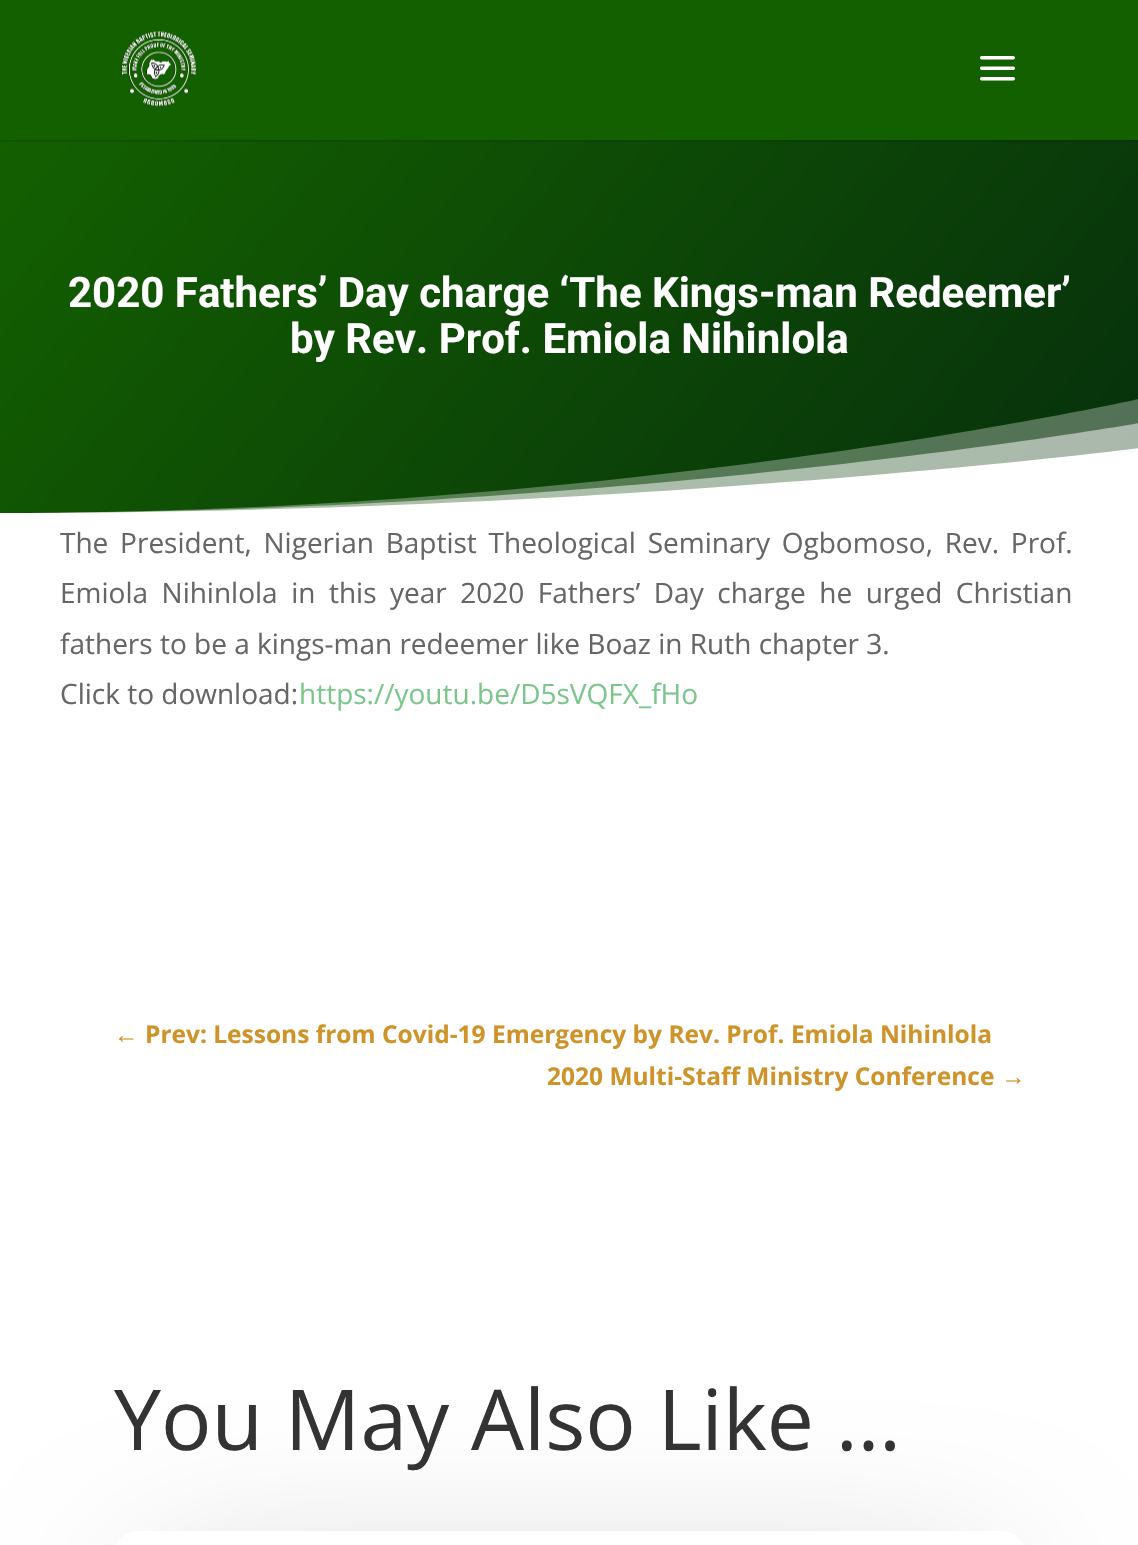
void draw(SkCanvas* canvas) {
  SkPaint paint;
  paint.setAntiAlias(true);
  auto face = [&](const char* family, int weight, float size, bool italic = false) {
    SkFontStyle style(weight, SkFontStyle::kNormal_Width,
      italic ? SkFontStyle::kItalic_Slant : SkFontStyle::kUpright_Slant);
    SkFont result(fontMgr->matchFamilyStyle(family, style), size);
    result.setSubpixel(true);
    return result;
  };
  auto writeSpaced = [&](const char* s, float x, float y, const SkFont& font, const SkPaint& ink, float letter, float word) {
    std::vector<SkGlyphID> glyphs(font.countText(s, strlen(s), SkTextEncoding::kUTF8));
    std::vector<float> xs(glyphs.size());
    font.textToGlyphs(s, strlen(s), SkTextEncoding::kUTF8, glyphs);
    font.getXPos(glyphs, xs, x);
    float extra = 0;
    for (size_t i = 0; i < glyphs.size(); i++) {
      xs[i] += extra;
      extra += letter + word * (glyphs[i] == font.unicharToGlyph(' '));
    }
    canvas->drawTextBlob(SkTextBlob::MakeFromPosHGlyphs(glyphs, xs, y, font), 0, 0, ink);
  };
  auto paste = [&](const char* path, float x, float y, float w, float h) {
    auto image = SkImages::DeferredFromEncodedData(SkData::MakeFromFileName(path));
    canvas->drawImageRect(image, SkRect::MakeXYWH(x, y, w, h), SkSamplingOptions());
  };
  auto shape = [&](const char* data, bool evenOdd = false) {
    SkPath result = *SkParsePath::FromSVGString(data);
    if (evenOdd) result.setFillType(SkPathFillType::kEvenOdd);
    return result;
  };
  canvas->clear(0xffffffff);
  paint.setColor(0xff136000);
  canvas->drawRect(SkRect::MakeXYWH(0, 0, 1138, 140), paint);
  paste("img/1.png", 121, 31, 75, 76);
  paste("img/2.png", 980, 56, 35, 25);
  {
    const SkColor colors[] = {0xff136000, 0xff07300d};
    const float stops[] = {0, 1};
    const SkPoint ends[] = {{143, -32}, {996, 683}};
    paint.setShader(SkGradientShader::MakeLinear(ends, colors, stops, 2, SkTileMode::kClamp));
    paint.setAlpha(255);
  }
  canvas->drawRect(SkRect::MakeXYWH(0, 142, 1138, 371), paint);
  {
    const SkColor colors[] = {0xff115600, 0xff062b0c};
    const float stops[] = {0, 1};
    const SkPoint ends[] = {{143, -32}, {996, 683}};
    paint.setShader(SkGradientShader::MakeLinear(ends, colors, stops, 2, SkTileMode::kClamp));
    paint.setAlpha(255);
  }
  canvas->drawRect(SkRect::MakeXYWH(0, 140, 1138, 2), paint);
  paint.setShader(nullptr);
  paint.setColor(0x4dffffff);
  canvas->drawPath(shape("M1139 513H0C629 513 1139 399 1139 399Z"), paint);
  paint.setColor(0x80ffffff);
  canvas->drawPath(shape("M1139 513H0C629 513 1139 423 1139 423Z"), paint);
  paint.setColor(0xffffffff);
  canvas->drawPath(shape("M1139 513H0C629 513 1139 448 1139 448Z"), paint);
  paint.setColor(0x4d000000);
  paint.setMaskFilter(SkMaskFilter::MakeBlur(kNormal_SkBlurStyle, 84));
  canvas->drawRect(SkRect::MakeXYWH(156, 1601, 828, 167), paint);
  paint.setMaskFilter(nullptr);
  paint.setColor(0xffffffff);
  canvas->drawRoundRect(SkRect::MakeXYWH(114, 1531, 912, 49), 35, 35, paint);
  auto f0 = face("Roboto", 700, 42);
  canvas->drawString("2020 Fathers’ Day charge ‘The Kings-man Redeemer’", 68, 307, f0, paint);
  canvas->drawString("by Rev. Prof. Emiola Nihinlola", 290, 353, f0, paint);
  auto f1 = face("Open Sans", 400, 28);
  paint.setColor(0xff666666);
  writeSpaced("The President, Nigerian Baptist Theological Seminary Ogbomoso, Rev. Prof.", 60, 553, f1, paint, 0, 4.5f);
  writeSpaced("Emiola Nihinlola in this year 2020 Fathers’ Day charge he urged Christian", 60, 603, f1, paint, 0, 6.25f);
  canvas->drawString("fathers to be a kings-man redeemer like Boaz in Ruth chapter 3.", 60, 654, f1, paint);
  canvas->drawString("Click to download:", 60, 704, f1, paint);
  paint.setColor(0xff7cc68d);
  canvas->drawString("https://youtu.be/D5sVQFX_fHo", 299, 704, f1, paint);
  auto f2 = face("Liberation Sans", 700, 24.5f);
  paint.setColor(0xffce942a);
  canvas->drawString("←", 114, 1043, f2, paint);
  auto f3 = face("Open Sans", 700, 24.5f);
  canvas->drawString("Prev: Lessons from Covid-19 Emergency by Rev. Prof. Emiola Nihinlola", 145, 1043, f3, paint);
  canvas->drawString("2020 Multi-Staff Ministry Conference", 547, 1085, f3, paint);
  canvas->drawString("→", 1001, 1085, f2, paint);
  auto f4 = face("Open Sans", 400, 84);
  paint.setColor(0xff333333);
  canvas->drawString("You May Also Like …", 114, 1450, f4, paint);
}
